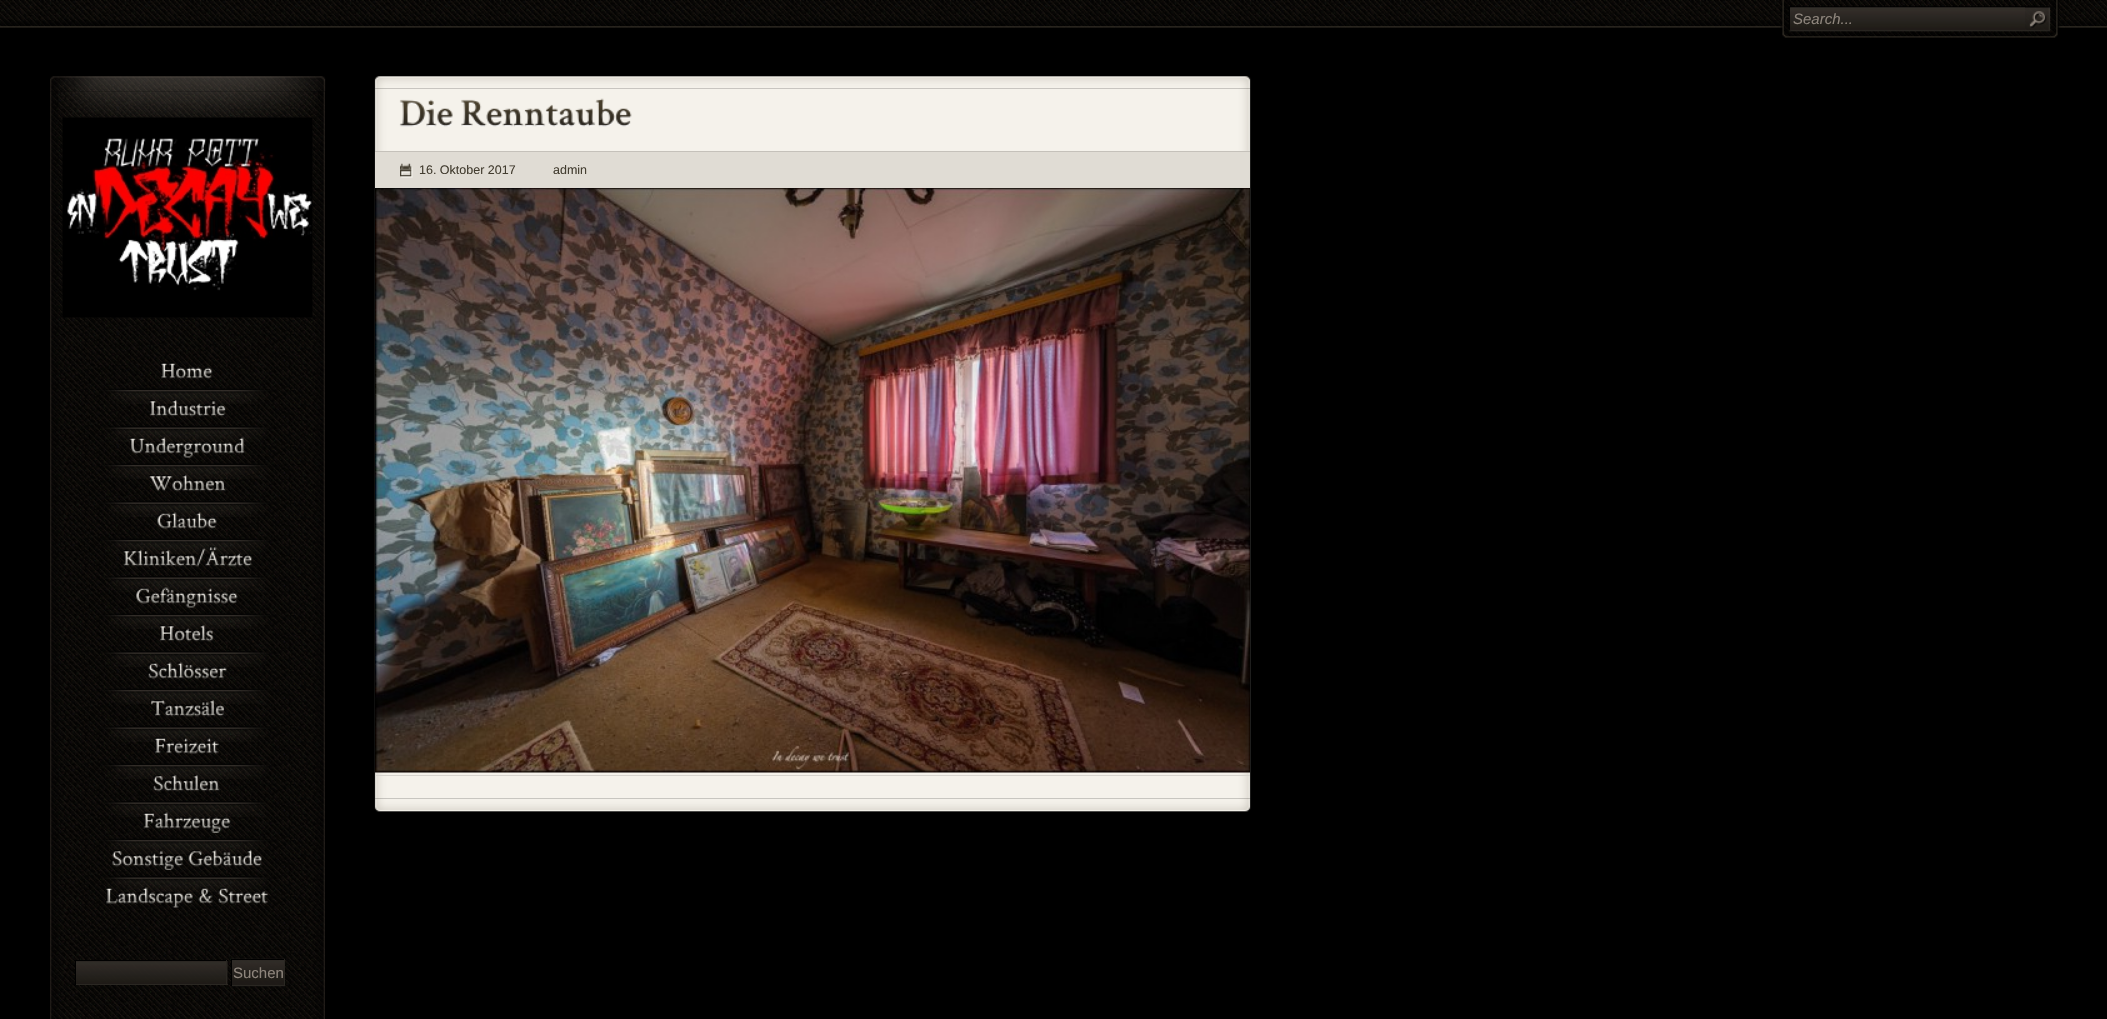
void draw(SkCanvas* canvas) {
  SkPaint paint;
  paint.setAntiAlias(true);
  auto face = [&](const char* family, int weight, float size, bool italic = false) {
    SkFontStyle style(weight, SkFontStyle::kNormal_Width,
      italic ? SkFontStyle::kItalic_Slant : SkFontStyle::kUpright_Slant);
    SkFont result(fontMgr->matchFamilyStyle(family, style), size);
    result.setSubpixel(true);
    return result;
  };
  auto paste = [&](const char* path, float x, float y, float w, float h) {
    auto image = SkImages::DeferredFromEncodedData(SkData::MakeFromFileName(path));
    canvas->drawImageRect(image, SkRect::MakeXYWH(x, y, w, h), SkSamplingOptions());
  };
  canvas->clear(0xff000000);
  paste("img/1.png", 0, 0, 2107, 28);
  paste("img/2.png", 1780, 0, 281, 38);
  paste("img/3.png", 1790, 7, 235, 23);
  paste("img/4.png", 2029, 11, 18, 17);
  paste("img/5.png", 374, 76, 877, 13);
  paste("img/11.png", 374, 798, 877, 14);
  paste("img/6.png", 374, 88, 877, 711);
  paste("img/7.png", 399, 99, 54, 28);
  paste("img/8.png", 461, 98, 171, 29);
  paint.setColor(0xffe0dcd4);
  canvas->drawRect(SkRect::MakeXYWH(375, 152, 875, 36), paint);
  paint.setColor(0xffc5c1ba);
  canvas->drawRect(SkRect::MakeXYWH(375, 151, 875, 1), paint);
  paste("img/9.png", 400, 163, 13, 15);
  paste("img/10.png", 375, 188, 875, 585);
  paint.setColor(0xffd7d4ce);
  canvas->drawRect(SkRect::MakeXYWH(375, 775, 875, 1), paint);
  paste("img/12.png", 50, 76, 276, 16);
  paste("img/13.png", 50, 91, 275, 928);
  paste("img/14.png", 58, 91, 260, 27);
  paste("img/15.png", 62, 117, 251, 201);
  paste("img/16.png", 161, 362, 52, 17);
  paste("img/17.png", 101, 388, 178, 16);
  paste("img/18.png", 149, 399, 77, 18);
  paste("img/19.png", 104, 425, 175, 17);
  paste("img/20.png", 129, 437, 116, 21);
  paste("img/21.png", 101, 463, 178, 16);
  paste("img/22.png", 148, 474, 78, 18);
  paste("img/23.png", 97, 500, 182, 17);
  paste("img/24.png", 156, 511, 61, 18);
  paste("img/25.png", 96, 538, 183, 16);
  paste("img/26.png", 123, 546, 129, 21);
  paste("img/27.png", 104, 576, 161, 16);
  paste("img/28.png", 135, 586, 103, 22);
  paste("img/29.png", 101, 613, 178, 16);
  paste("img/30.png", 159, 624, 55, 18);
  paste("img/31.png", 104, 650, 175, 17);
  paste("img/32.png", 147, 661, 80, 18);
  paste("img/33.png", 101, 688, 178, 16);
  paste("img/34.png", 150, 699, 74, 18);
  paste("img/35.png", 97, 725, 182, 17);
  paste("img/36.png", 155, 737, 64, 17);
  paste("img/37.png", 96, 763, 183, 16);
  paste("img/38.png", 153, 774, 67, 18);
  paste("img/39.png", 104, 801, 161, 16);
  paste("img/40.png", 143, 811, 88, 22);
  paste("img/41.png", 101, 838, 178, 16);
  paste("img/42.png", 111, 850, 72, 20);
  paste("img/43.png", 187, 849, 75, 18);
  paste("img/44.png", 104, 875, 175, 17);
  paste("img/45.png", 106, 887, 87, 21);
  paste("img/46.png", 198, 887, 15, 17);
  paste("img/47.png", 217, 887, 51, 17);
  paste("img/48.png", 76, 961, 152, 23);
  {
    const struct { float x, y, w, h; SkColor color; } items[] = {
      {75, 960, 153, 1, 0xff000000},
      {226, 960, 1, 25, 0xff2a2722},
      {75, 984, 153, 1, 0xff2a2722},
      {75, 960, 1, 25, 0xff000000},
    };
    for (auto [x, y, w, h, color] : items) {
      paint.setColor(color);
      canvas->drawRect(SkRect::MakeXYWH(x, y, w, h), paint);
    }
  }
  paste("img/49.png", 231, 958, 54, 29);
  {
    const struct { float x, y, w, h; SkColor color; } items[] = {
      {231, 959, 54, 1, 0xff000000},
      {284, 959, 1, 27, 0xff2a2722},
      {231, 985, 54, 1, 0xff2a2722},
      {231, 959, 1, 27, 0xff000000},
    };
    for (auto [x, y, w, h, color] : items) {
      paint.setColor(color);
      canvas->drawRect(SkRect::MakeXYWH(x, y, w, h), paint);
    }
  }
  auto f0 = face("Liberation Sans", 400, 15, true);
  paint.setColor(0xff8e857c);
  canvas->drawString("Search...", 1793, 24, f0, paint);
  auto f1 = face("Liberation Sans", 400, 12.5f);
  paint.setColor(0xff433d30);
  canvas->drawString("16. Oktober 2017", 419, 174, f1, paint);
  canvas->drawString("admin", 553, 174, f1, paint);
  auto f2 = face("Liberation Sans", 400, 15);
  paint.setColor(0xff8e857c);
  canvas->drawString("Suchen", 233, 978, f2, paint);
}
